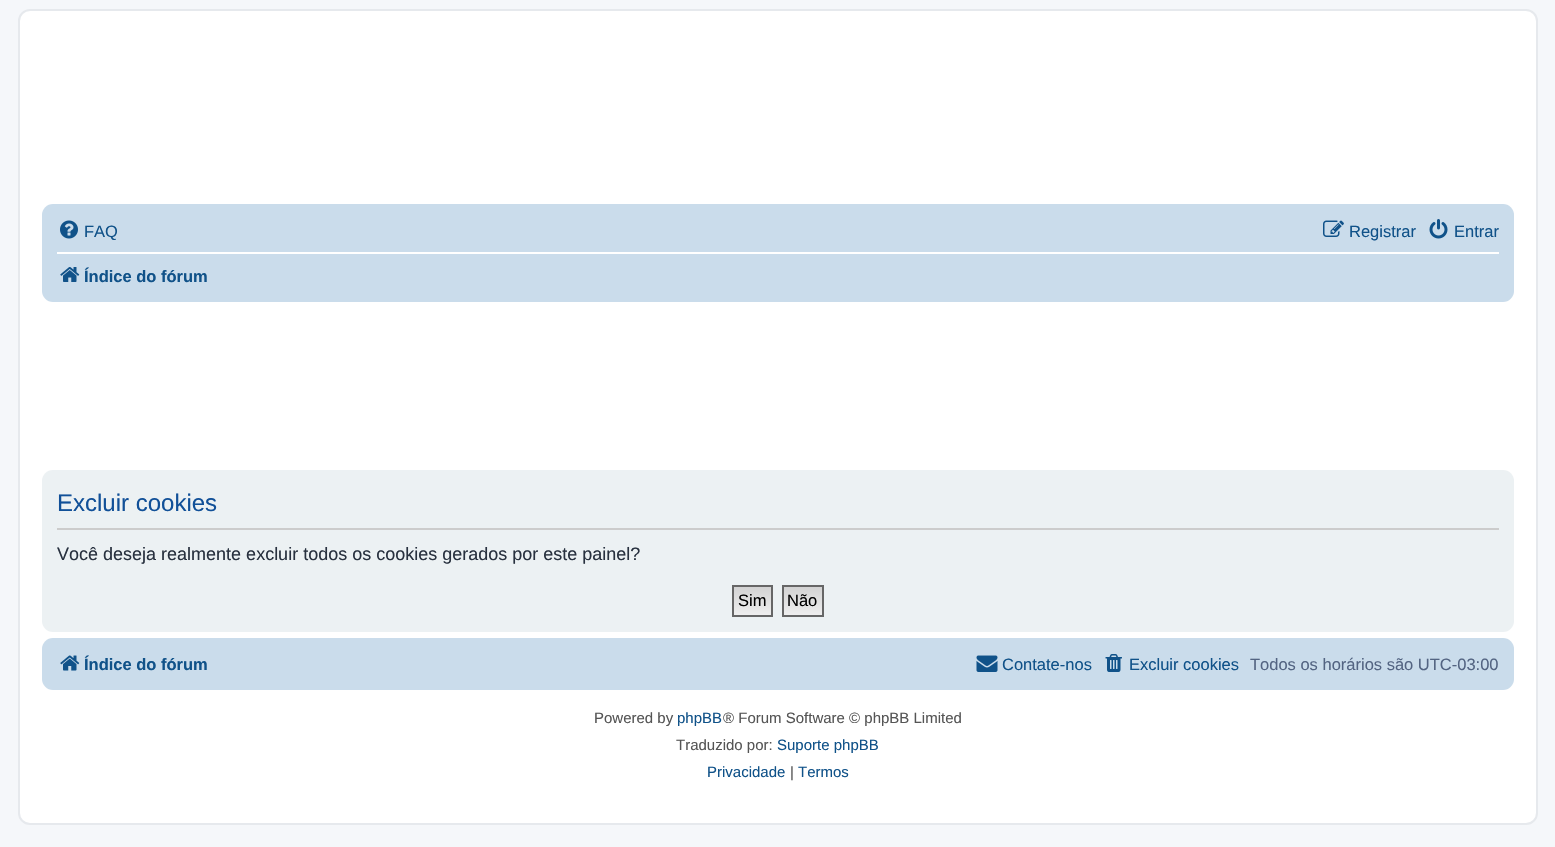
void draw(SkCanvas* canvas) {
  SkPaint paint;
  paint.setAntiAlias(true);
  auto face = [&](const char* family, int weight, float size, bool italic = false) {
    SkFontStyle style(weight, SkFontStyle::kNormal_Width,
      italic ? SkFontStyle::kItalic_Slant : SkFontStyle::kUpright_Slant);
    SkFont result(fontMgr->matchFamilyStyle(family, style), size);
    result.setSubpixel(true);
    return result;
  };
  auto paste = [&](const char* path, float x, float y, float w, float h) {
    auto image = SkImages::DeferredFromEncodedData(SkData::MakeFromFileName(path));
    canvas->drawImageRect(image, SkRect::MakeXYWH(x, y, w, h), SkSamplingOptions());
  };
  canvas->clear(0xfff5f7fa);
  paint.setColor(0xffffffff);
  canvas->drawRoundRect(SkRect::MakeXYWH(19, 10, 1518, 814), 11, 11, paint);
  paint.setStroke(true);
  paint.setStrokeWidth(2);
  paint.setColor(0xffe6e9ed);
  canvas->drawRoundRect(SkRect::MakeXYWH(19, 10, 1518, 814), 11, 11, paint);
  paint.setStroke(false);
  paint.setColor(0xffcadceb);
  canvas->drawRoundRect(SkRect::MakeXYWH(42, 204, 1472, 98), 11, 11, paint);
  paste("img/1.png", 60, 220, 18, 19);
  paste("img/2.png", 1323, 220, 21, 17);
  paste("img/3.png", 1429, 219, 19, 20);
  paint.setColor(0xffffffff);
  canvas->drawRect(SkRect::MakeXYWH(57, 252, 1442, 2), paint);
  paste("img/4.png", 60, 267, 20, 15);
  paint.setColor(0xffecf1f3);
  canvas->drawRoundRect(SkRect::MakeXYWH(42, 470, 1472, 162), 11, 11, paint);
  paint.setColor(0xffcccccc);
  canvas->drawRect(SkRect::MakeXYWH(57, 528, 1442, 2), paint);
  {
    const SkColor colors[] = {0xffd2d2d2, 0xffefefef};
    const float stops[] = {0, 1};
    const SkPoint ends[] = {{752, 587}, {752, 615}};
    paint.setShader(SkGradientShader::MakeLinear(ends, colors, stops, 2, SkTileMode::kClamp));
    paint.setAlpha(255);
  }
  canvas->drawRect(SkRect::MakeXYWH(734, 587, 37, 28), paint);
  paint.setStroke(true);
  paint.setShader(nullptr);
  paint.setColor(0xff666666);
  canvas->drawRect(SkRect::MakeXYWH(733, 586, 39, 30), paint);
  paint.setStroke(false);
  {
    const SkColor colors[] = {0xffd2d2d2, 0xffefefef};
    const float stops[] = {0, 1};
    const SkPoint ends[] = {{803, 587}, {803, 615}};
    paint.setShader(SkGradientShader::MakeLinear(ends, colors, stops, 2, SkTileMode::kClamp));
    paint.setAlpha(255);
  }
  canvas->drawRect(SkRect::MakeXYWH(784, 587, 38, 28), paint);
  paint.setStroke(true);
  paint.setShader(nullptr);
  paint.setColor(0xff666666);
  canvas->drawRect(SkRect::MakeXYWH(783, 586, 40, 30), paint);
  paint.setStroke(false);
  paint.setColor(0xffcadceb);
  canvas->drawRoundRect(SkRect::MakeXYWH(42, 638, 1472, 52), 11, 11, paint);
  paste("img/5.png", 60, 655, 20, 16);
  paste("img/6.png", 976, 655, 22, 17);
  paste("img/7.png", 1105, 654, 17, 18);
  auto f0 = face("Liberation Sans", 400, 16.5f);
  paint.setColor(0xff105289);
  {
    const struct { const char* s; float x, y; } items[] = {
      {"FAQ", 84, 237},
      {"Registrar", 1349, 237},
      {"Entrar", 1454, 237},
    };
    for (auto [s, x, y] : items) {
      canvas->drawString(s, x, y, f0, paint);
    }
  }
  auto f1 = face("Liberation Sans", 700, 16.5f);
  canvas->drawString("Índice do fórum", 84, 282, f1, paint);
  auto f2 = face("Liberation Sans", 400, 24);
  paint.setColor(0xff115098);
  canvas->drawString("Excluir cookies", 57, 511, f2, paint);
  auto f3 = face("Liberation Sans", 400, 18);
  paint.setColor(0xff28313f);
  canvas->drawString("Você deseja realmente excluir todos os cookies gerados por este painel?", 57, 560, f3, paint);
  paint.setColor(0xff000000);
  canvas->drawString("Sim", 738, 606, f0, paint);
  canvas->drawString("Não", 787, 606, f0, paint);
  paint.setColor(0xff105289);
  canvas->drawString("Índice do fórum", 84, 670, f1, paint);
  canvas->drawString("Contate-nos", 1002, 670, f0, paint);
  canvas->drawString("Excluir cookies", 1129, 670, f0, paint);
  paint.setColor(0xff536482);
  canvas->drawString("Todos os horários são UTC-03:00", 1250, 670, f0, paint);
  auto f4 = face("Liberation Sans", 400, 15);
  paint.setColor(0xff555555);
  canvas->drawString("Powered by", 594, 723, f4, paint);
  paint.setColor(0xff105289);
  canvas->drawString("phpBB", 677, 723, f4, paint);
  paint.setColor(0xff555555);
  canvas->drawString("® Forum Software © phpBB Limited", 723, 723, f4, paint);
  canvas->drawString("Traduzido por:", 676, 750, f4, paint);
  paint.setColor(0xff105289);
  canvas->drawString("Suporte phpBB", 777, 750, f4, paint);
  canvas->drawString("Privacidade", 707, 777, f4, paint);
  paint.setColor(0xff555555);
  canvas->drawString("|", 790, 777, f4, paint);
  paint.setColor(0xff105289);
  canvas->drawString("Termos", 798, 777, f4, paint);
}
